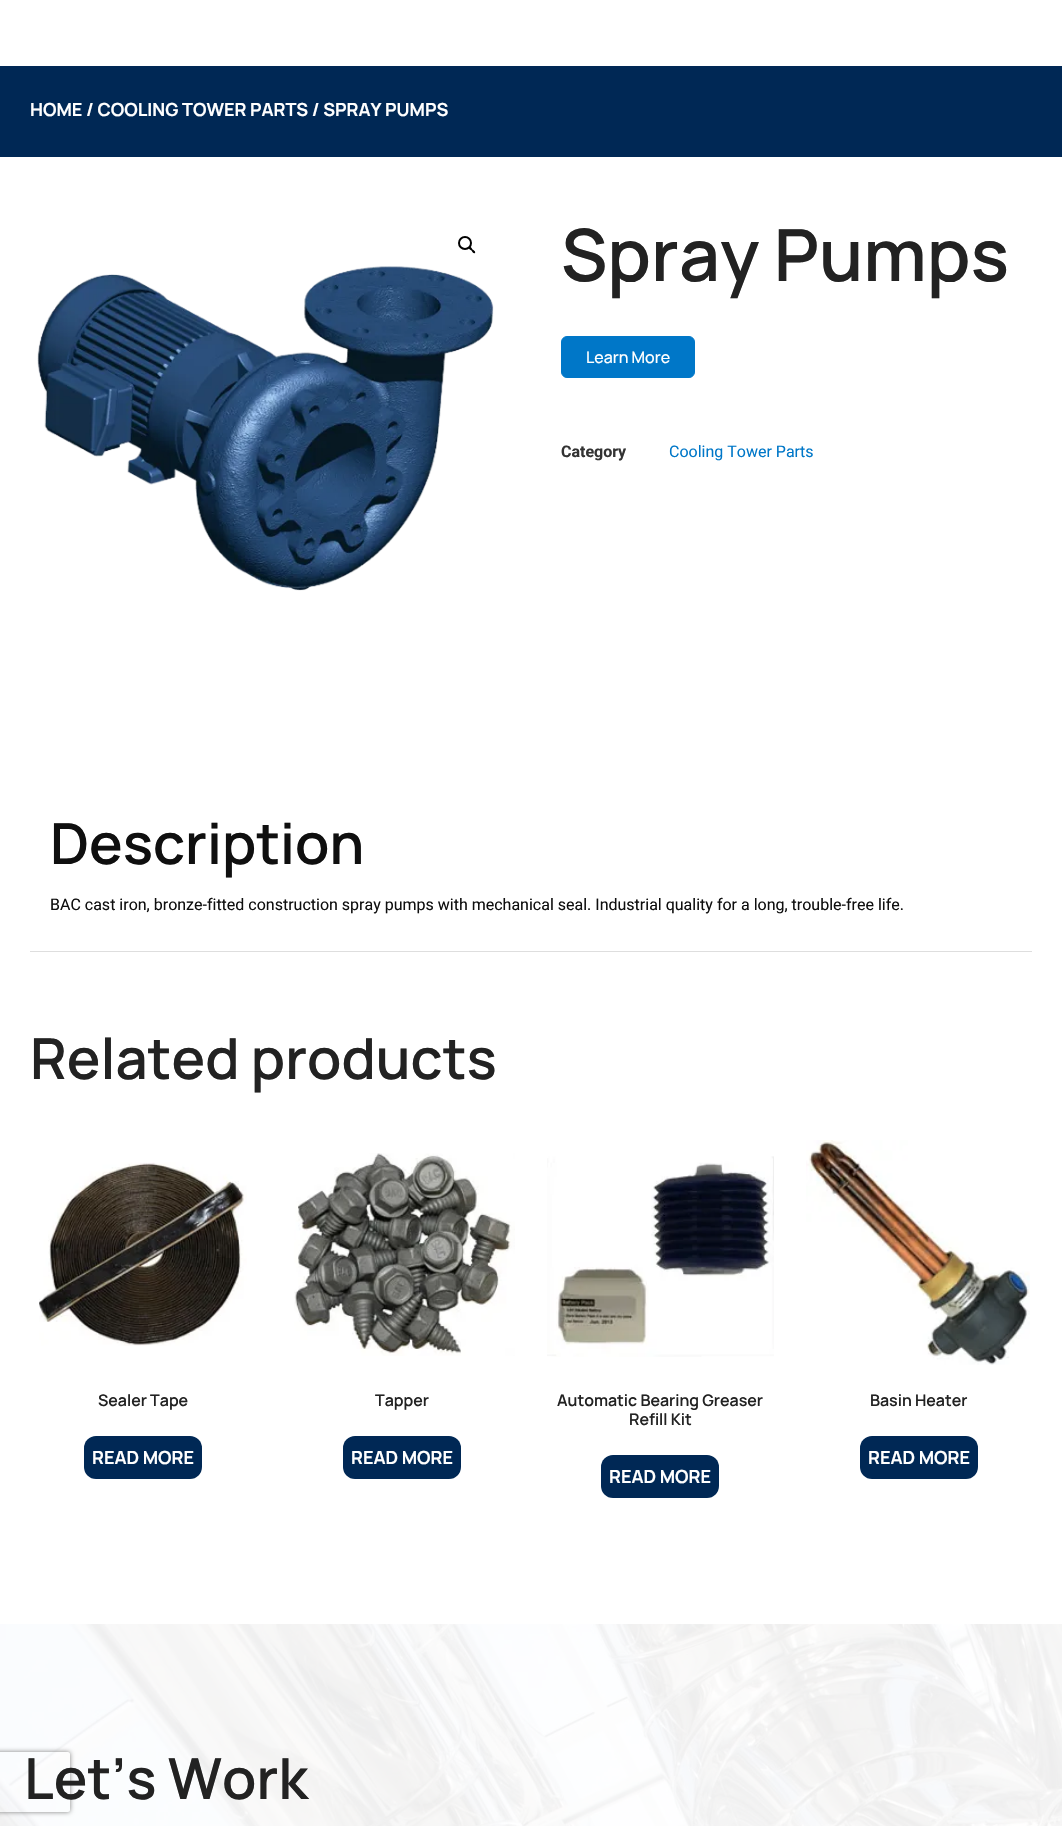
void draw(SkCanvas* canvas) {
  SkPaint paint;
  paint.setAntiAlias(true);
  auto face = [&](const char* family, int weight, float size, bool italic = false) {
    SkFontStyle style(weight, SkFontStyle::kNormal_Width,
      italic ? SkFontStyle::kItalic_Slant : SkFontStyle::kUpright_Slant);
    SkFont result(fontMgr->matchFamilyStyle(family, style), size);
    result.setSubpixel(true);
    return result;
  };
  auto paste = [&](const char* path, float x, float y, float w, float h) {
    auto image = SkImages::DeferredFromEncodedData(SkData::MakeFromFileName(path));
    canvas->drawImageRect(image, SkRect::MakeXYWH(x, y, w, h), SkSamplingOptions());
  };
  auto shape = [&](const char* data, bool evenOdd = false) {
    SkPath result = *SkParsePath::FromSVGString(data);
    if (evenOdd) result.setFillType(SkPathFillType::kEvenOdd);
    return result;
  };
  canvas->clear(0xffffffff);
  paint.setColor(0xff002855);
  canvas->drawRect(SkRect::MakeXYWH(0, 66, 1062, 91), paint);
  paint.setStroke(true);
  paint.setStrokeWidth(2);
  paint.setColor(0xff000000);
  canvas->drawCircle(465, 243, 6, paint);
  paint.setStroke(false);
  canvas->drawPath(shape("M469 247C470.5 246 472 248.5 472.5 249.5C473.5 250 476 251.5 475 253C473.5 254 472 251.5 471.5 250.5C470.5 250 468 248.5 469 247Z"), paint);
  paste("img/1.png", 37, 266, 457, 325);
  paint.setColor(0xff0077c8);
  canvas->drawRoundRect(SkRect::MakeXYWH(561.5f, 336.5f, 133, 41), 5.5f, 5.5f, paint);
  paint.setStroke(true);
  paint.setStrokeWidth(1);
  canvas->drawRoundRect(SkRect::MakeXYWH(561.5f, 336.5f, 133, 41), 5.5f, 5.5f, paint);
  paint.setStroke(false);
  paint.setColor(0xffdedede);
  canvas->drawRect(SkRect::MakeXYWH(30, 951, 1002, 1), paint);
  paste("img/2.png", 39, 1162, 208, 184);
  paint.setColor(0xff002855);
  canvas->drawRoundRect(SkRect::MakeXYWH(84, 1436, 118, 43), 12, 12, paint);
  paste("img/3.png", 294, 1153, 221, 203);
  canvas->drawRoundRect(SkRect::MakeXYWH(343, 1436, 118, 43), 12, 12, paint);
  paste("img/4.png", 547, 1156, 227, 201);
  canvas->drawRoundRect(SkRect::MakeXYWH(601, 1455, 118, 43), 12, 12, paint);
  paste("img/5.png", 806, 1140, 224, 225);
  canvas->drawRoundRect(SkRect::MakeXYWH(860, 1436, 118, 43), 12, 12, paint);
  paste("img/6.png", 0, 1624, 1062, 202);
  canvas->save();
  canvas->clipPath(shape("M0 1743H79V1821H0ZM-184 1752H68C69 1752 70 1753 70 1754V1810C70 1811 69 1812 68 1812H-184C-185 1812-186 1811-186 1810V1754C-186 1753-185 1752-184 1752Z", true), true);
  paint.setColor(0xff808080);
  paint.setMaskFilter(SkMaskFilter::MakeBlur(kNormal_SkBlurStyle, 2.5f));
  canvas->drawRoundRect(SkRect::MakeXYWH(-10, 1752, 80, 60), 2, 2, paint);
  paint.setMaskFilter(nullptr);
  canvas->restore();
  auto f0 = face("Manrope", 700, 18);
  paint.setColor(0xffffffff);
  canvas->drawString("HOME / COOLING TOWER PARTS / SPRAY PUMPS", 30, 116, f0, paint);
  auto f1 = face("Manrope", 600, 72);
  paint.setColor(0xff222222);
  canvas->drawString("Spray Pumps", 561, 281, f1, paint);
  auto f2 = face("Manrope", 500, 16);
  paint.setColor(0xffffffff);
  canvas->drawString("Learn More", 586, 363, f2, paint);
  auto f3 = face("Roboto", 700, 16);
  paint.setColor(0xff333333);
  canvas->drawString("Category", 561, 457, f3, paint);
  auto f4 = face("Roboto", 400, 16);
  paint.setColor(0xff0077c8);
  canvas->drawString("Cooling Tower Parts", 669, 457, f4, paint);
  auto f5 = face("Manrope", 600, 56.5f);
  paint.setColor(0xff0f0f0f);
  canvas->drawString("Description", 50, 864, f5, paint);
  canvas->drawString("BAC cast iron, bronze-fitted construction spray pumps with mechanical seal. Industrial quality for a long, trouble-free life.", 50, 910, f4, paint);
  paint.setColor(0xff222222);
  canvas->drawString("Related products", 30, 1079, f5, paint);
  auto f6 = face("Manrope", 600, 16);
  canvas->drawString("Sealer Tape", 98, 1406, f6, paint);
  paint.setColor(0xffffffff);
  canvas->drawString("READ MORE", 92, 1464, f0, paint);
  paint.setColor(0xff222222);
  canvas->drawString("Tapper", 375, 1406, f6, paint);
  paint.setColor(0xffffffff);
  canvas->drawString("READ MORE", 351, 1464, f0, paint);
  paint.setColor(0xff222222);
  canvas->drawString("Automatic Bearing Greaser", 557, 1406, f6, paint);
  canvas->drawString("Refill Kit", 629, 1425, f6, paint);
  paint.setColor(0xffffffff);
  canvas->drawString("READ MORE", 609, 1483, f0, paint);
  paint.setColor(0xff222222);
  canvas->drawString("Basin Heater", 870, 1406, f6, paint);
  paint.setColor(0xffffffff);
  canvas->drawString("READ MORE", 868, 1464, f0, paint);
  paint.setColor(0xff222222);
  canvas->drawString("Let’s Work", 24, 1799, f5, paint);
}
